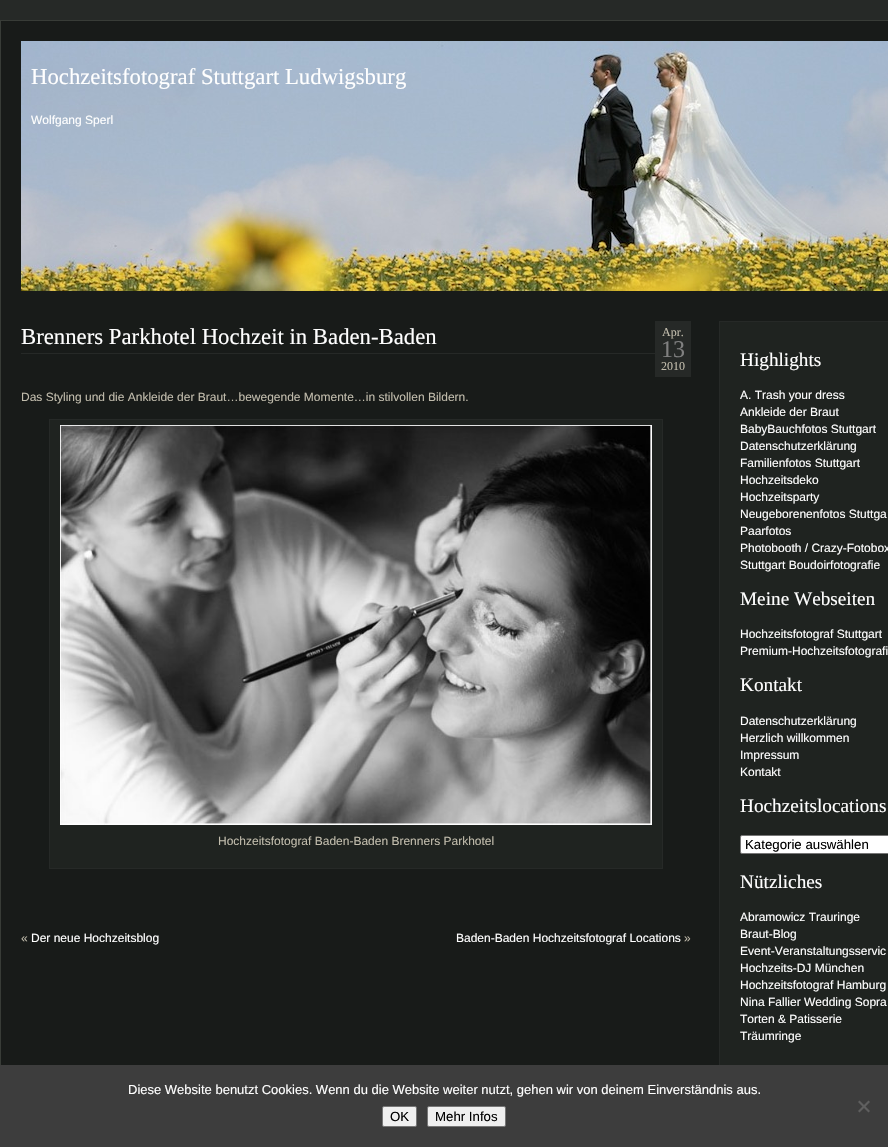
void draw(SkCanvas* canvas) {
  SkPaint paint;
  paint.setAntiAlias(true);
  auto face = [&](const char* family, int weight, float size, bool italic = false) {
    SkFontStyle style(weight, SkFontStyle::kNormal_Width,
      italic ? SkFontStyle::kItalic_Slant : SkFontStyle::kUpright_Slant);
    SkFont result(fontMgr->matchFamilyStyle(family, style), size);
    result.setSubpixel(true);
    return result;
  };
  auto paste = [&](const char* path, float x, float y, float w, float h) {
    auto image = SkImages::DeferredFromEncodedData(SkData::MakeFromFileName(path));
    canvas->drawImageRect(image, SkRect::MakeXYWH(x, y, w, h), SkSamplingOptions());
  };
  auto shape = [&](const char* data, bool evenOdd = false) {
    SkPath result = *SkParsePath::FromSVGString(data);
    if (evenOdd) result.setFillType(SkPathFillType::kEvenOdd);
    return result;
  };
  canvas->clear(0xff262927);
  paint.setColor(0xff181b19);
  canvas->drawRect(SkRect::MakeXYWH(1, 21, 887, 1044), paint);
  paint.setStroke(true);
  paint.setStrokeWidth(1);
  paint.setColor(0xff383c37);
  canvas->drawRect(SkRect::MakeXYWH(0.5f, 20.5f, 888, 1106), paint);
  paste("img/1.png", 21, 41, 867, 250);
  paint.setStroke(false);
  paint.setColor(0xff262927);
  canvas->drawRect(SkRect::MakeXYWH(21, 353, 634, 1), paint);
  canvas->drawRect(SkRect::MakeXYWH(655, 321, 36, 56), paint);
  paint.setColor(0xff1f2320);
  canvas->drawRect(SkRect::MakeXYWH(49.5f, 419.5f, 613, 449), paint);
  paint.setStroke(true);
  paint.setColor(0xff262927);
  canvas->drawRect(SkRect::MakeXYWH(49.5f, 419.5f, 613, 449), paint);
  paste("img/2.png", 60, 425, 592, 400);
  paint.setStroke(false);
  paint.setColor(0xff1f2320);
  canvas->drawRect(SkRect::MakeXYWH(720, 322, 168, 743), paint);
  paint.setStroke(true);
  paint.setColor(0xff262927);
  canvas->drawRect(SkRect::MakeXYWH(719.5f, 321.5f, 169, 746), paint);
  paint.setStroke(false);
  paint.setColor(0xffffffff);
  canvas->drawRoundRect(SkRect::MakeXYWH(740.5f, 835.5f, 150, 18), 1.5f, 1.5f, paint);
  paint.setStroke(true);
  paint.setColor(0xff767676);
  canvas->drawRoundRect(SkRect::MakeXYWH(740.5f, 835.5f, 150, 18), 1.5f, 1.5f, paint);
  paint.setStroke(false);
  paint.setColor(0xff3d3d3d);
  canvas->drawRect(SkRect::MakeXYWH(0, 1065, 888, 82), paint);
  paint.setColor(0xff5f5f5f);
  canvas->drawPath(shape("M868.5 1100.5L870 1102L859.5 1112.5L858 1111Z"), paint);
  canvas->drawPath(shape("M858 1102L859.5 1100.5L870 1111L868.5 1112.5Z"), paint);
  paint.setColor(0xffefefef);
  canvas->drawRoundRect(SkRect::MakeXYWH(382.5f, 1106.5f, 34, 20), 1.5f, 1.5f, paint);
  paint.setStroke(true);
  paint.setColor(0xff767676);
  canvas->drawRoundRect(SkRect::MakeXYWH(382.5f, 1106.5f, 34, 20), 1.5f, 1.5f, paint);
  paint.setStroke(false);
  paint.setColor(0xffefefef);
  canvas->drawRoundRect(SkRect::MakeXYWH(427.5f, 1106.5f, 78, 20), 1.5f, 1.5f, paint);
  paint.setStroke(true);
  paint.setColor(0xff767676);
  canvas->drawRoundRect(SkRect::MakeXYWH(427.5f, 1106.5f, 78, 20), 1.5f, 1.5f, paint);
  auto f0 = face("Liberation Serif", 400, 22.75f);
  paint.setStroke(false);
  paint.setColor(0xffffffff);
  canvas->drawString("Hochzeitsfotograf Stuttgart Ludwigsburg", 31, 84, f0, paint);
  auto f1 = face("Liberation Sans", 400, 12);
  canvas->drawString("Wolfgang Sperl", 31, 124, f1, paint);
  canvas->drawString("Brenners Parkhotel Hochzeit in Baden-Baden", 21, 344, f0, paint);
  auto f2 = face("Liberation Serif", 400, 12);
  paint.setColor(0xffc1bcac);
  canvas->drawString("Apr.", 662, 336, f2, paint);
  auto f3 = face("Liberation Serif", 400, 24);
  paint.setColor(0xff808080);
  canvas->drawString("13", 661, 357, f3, paint);
  paint.setColor(0xffc1bcac);
  canvas->drawString("2010", 661, 370, f2, paint);
  {
    const struct { const char* s; float x, y; } items[] = {
      {"Das Styling und die Ankleide der Braut…bewegende Momente…in stilvollen Bildern.", 21, 401},
      {"Hochzeitsfotograf Baden-Baden Brenners Parkhotel", 218, 845},
      {"«", 21, 942},
    };
    for (auto [s, x, y] : items) {
      canvas->drawString(s, x, y, f1, paint);
    }
  }
  paint.setColor(0xffffffff);
  canvas->drawString("Der neue Hochzeitsblog", 31, 942, f1, paint);
  canvas->drawString("Baden-Baden Hochzeitsfotograf Locations", 456, 942, f1, paint);
  paint.setColor(0xffc1bcac);
  canvas->drawString("»", 684, 942, f1, paint);
  auto f4 = face("Liberation Serif", 400, 19.25f);
  paint.setColor(0xffffffff);
  canvas->drawString("Highlights", 740, 366, f4, paint);
  {
    const struct { const char* s; float x, y; } items[] = {
      {"A. Trash your dress", 740, 399},
      {"Ankleide der Braut", 740, 416},
      {"BabyBauchfotos Stuttgart", 740, 433},
      {"Datenschutzerklärung", 740, 450},
      {"Familienfotos Stuttgart", 740, 467},
      {"Hochzeitsdeko", 740, 484},
      {"Hochzeitsparty", 740, 501},
      {"Neugeborenenfotos Stuttga", 740, 518},
      {"Paarfotos", 740, 535},
      {"Photobooth / Crazy-Fotobox", 740, 552},
      {"Stuttgart Boudoirfotografie", 740, 569},
    };
    for (auto [s, x, y] : items) {
      canvas->drawString(s, x, y, f1, paint);
    }
  }
  canvas->drawString("Meine Webseiten", 740, 605, f4, paint);
  canvas->drawString("Hochzeitsfotograf Stuttgart", 740, 638, f1, paint);
  canvas->drawString("Premium-Hochzeitsfotografi", 740, 655, f1, paint);
  canvas->drawString("Kontakt", 740, 691, f4, paint);
  {
    const struct { const char* s; float x, y; } items[] = {
      {"Datenschutzerklärung", 740, 725},
      {"Herzlich willkommen", 740, 742},
      {"Impressum", 740, 759},
      {"Kontakt", 740, 776},
    };
    for (auto [s, x, y] : items) {
      canvas->drawString(s, x, y, f1, paint);
    }
  }
  canvas->drawString("Hochzeitslocations", 740, 812, f4, paint);
  auto f5 = face("Liberation Sans", 400, 13.25f);
  paint.setColor(0xff000000);
  canvas->drawString("Kategorie auswählen", 745, 849, f5, paint);
  paint.setColor(0xffffffff);
  canvas->drawString("Nützliches", 740, 888, f4, paint);
  {
    const struct { const char* s; float x, y; } items[] = {
      {"Abramowicz Trauringe", 740, 921},
      {"Braut-Blog", 740, 938},
      {"Event-Veranstaltungsservic", 740, 955},
      {"Hochzeits-DJ München", 740, 972},
      {"Hochzeitsfotograf Hamburg", 740, 989},
      {"Nina Fallier Wedding Sopra", 740, 1006},
      {"Torten & Patisserie", 740, 1023},
      {"Träumringe", 740, 1040},
    };
    for (auto [s, x, y] : items) {
      canvas->drawString(s, x, y, f1, paint);
    }
  }
  auto f6 = face("Liberation Sans", 400, 13);
  canvas->drawString("Diese Website benutzt Cookies. Wenn du die Website weiter nutzt, gehen wir von deinem Einverständnis aus.", 128, 1094, f6, paint);
  paint.setColor(0xff000000);
  canvas->drawString("OK", 390, 1121, f5, paint);
  canvas->drawString("Mehr Infos", 435, 1121, f5, paint);
}
